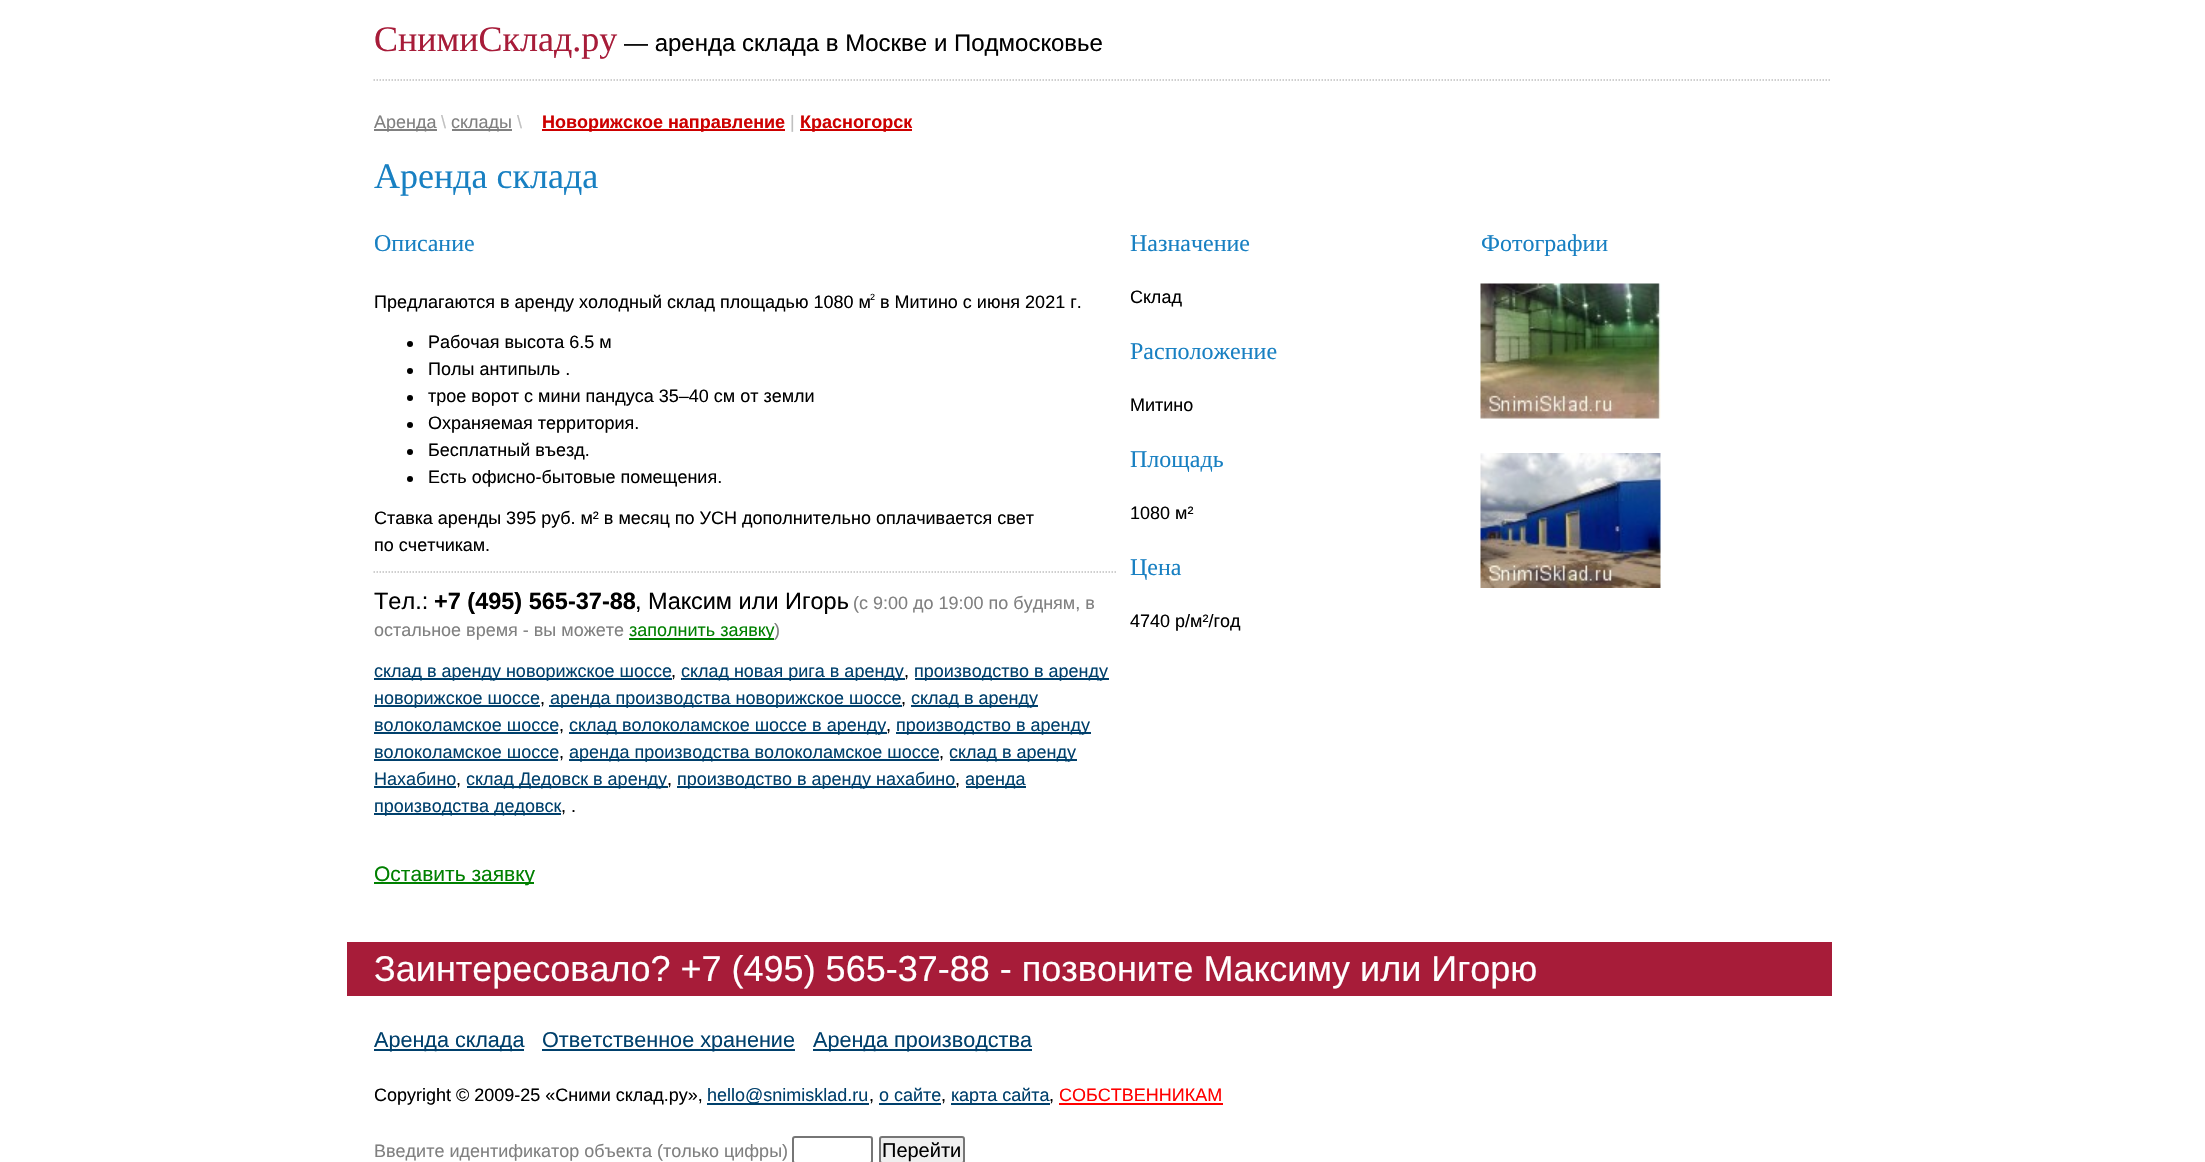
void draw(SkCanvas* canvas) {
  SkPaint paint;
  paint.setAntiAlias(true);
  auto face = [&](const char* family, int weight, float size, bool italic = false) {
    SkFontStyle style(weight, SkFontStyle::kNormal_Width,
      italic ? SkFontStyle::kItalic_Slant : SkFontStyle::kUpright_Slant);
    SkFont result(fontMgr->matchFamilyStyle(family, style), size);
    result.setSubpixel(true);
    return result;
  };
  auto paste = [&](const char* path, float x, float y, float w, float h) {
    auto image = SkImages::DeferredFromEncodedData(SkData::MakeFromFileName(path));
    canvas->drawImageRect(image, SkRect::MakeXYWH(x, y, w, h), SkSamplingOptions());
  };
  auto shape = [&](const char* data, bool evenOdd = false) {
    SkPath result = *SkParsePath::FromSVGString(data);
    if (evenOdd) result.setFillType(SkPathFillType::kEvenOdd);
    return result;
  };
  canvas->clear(0xffffffff);
  paint.setStroke(true);
  paint.setStrokeWidth(1.5f);
  paint.setColor(0xffc0c0c0);
  paint.setPathEffect(SkDashPathEffect::Make({{1.5f, 1.5f}}, 0));
  canvas->drawPath(shape("M373.5 80H1831.5"), paint);
  paint.setPathEffect(nullptr);
  paint.setStroke(false);
  {
    const struct { float x, y, w, h; SkColor color; } items[] = {
      {374, 129, 63, 2, 0xff808080},
      {452, 129, 60, 2, 0xff808080},
      {542, 129, 243, 2, 0xffcd0000},
      {800, 129, 112, 2, 0xffcd0000},
    };
    for (auto [x, y, w, h, color] : items) {
      paint.setColor(color);
      canvas->drawRect(SkRect::MakeXYWH(x, y, w, h), paint);
    }
  }
  paint.setColor(0xff000000);
  canvas->drawCircle(410, 344, 3, paint);
  canvas->drawCircle(410, 371, 3, paint);
  canvas->drawCircle(410, 398, 3, paint);
  canvas->drawCircle(410, 425, 3, paint);
  canvas->drawCircle(410, 452, 3, paint);
  canvas->drawCircle(410, 479, 3, paint);
  paint.setStroke(true);
  paint.setColor(0xffc0c0c0);
  paint.setPathEffect(SkDashPathEffect::Make({{1.5f, 1.5f}}, 0));
  canvas->drawPath(shape("M373.5 572H1116"), paint);
  paint.setPathEffect(nullptr);
  paint.setStroke(false);
  {
    const struct { float x, y, w, h; SkColor color; } items[] = {
      {629, 638, 145, 2, 0xff008000},
      {374, 678, 298, 2, 0xff00406c},
      {681, 678, 224, 2, 0xff00406c},
      {915, 678, 194, 2, 0xff00406c},
      {374, 705, 166, 2, 0xff00406c},
      {549, 705, 353, 2, 0xff00406c},
      {911, 705, 127, 2, 0xff00406c},
      {374, 732, 184, 2, 0xff00406c},
      {569, 732, 318, 2, 0xff00406c},
      {896, 732, 195, 2, 0xff00406c},
      {374, 759, 184, 2, 0xff00406c},
      {569, 759, 370, 2, 0xff00406c},
      {950, 759, 127, 2, 0xff00406c},
      {374, 786, 82, 2, 0xff00406c},
      {467, 786, 201, 2, 0xff00406c},
      {677, 786, 279, 2, 0xff00406c},
      {966, 786, 60, 2, 0xff00406c},
      {374, 813, 187, 2, 0xff00406c},
      {374, 882, 160, 2, 0xff008000},
    };
    for (auto [x, y, w, h, color] : items) {
      paint.setColor(color);
      canvas->drawRect(SkRect::MakeXYWH(x, y, w, h), paint);
    }
  }
  paste("img/1.png", 1480, 283, 181, 136);
  paste("img/2.png", 1480, 453, 181, 135);
  {
    const struct { float x, y, w, h; SkColor color; } items[] = {
      {347, 942, 1485, 54, 0xffa71c39},
      {374, 1049, 150, 2, 0xff00406c},
      {542, 1049, 253, 2, 0xff00406c},
      {813, 1049, 219, 2, 0xff00406c},
      {707, 1103, 162, 2, 0xff00406c},
      {879, 1103, 62, 2, 0xff00406c},
      {951, 1103, 99, 2, 0xff00406c},
      {1059, 1103, 164, 2, 0xffff0000},
    };
    for (auto [x, y, w, h, color] : items) {
      paint.setColor(color);
      canvas->drawRect(SkRect::MakeXYWH(x, y, w, h), paint);
    }
  }
  paint.setStroke(true);
  paint.setStrokeWidth(2);
  paint.setColor(0xff767676);
  canvas->drawRoundRect(SkRect::MakeXYWH(793, 1137, 79, 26), 2, 2, paint);
  paint.setStroke(false);
  paint.setColor(0xffefefef);
  canvas->drawRoundRect(SkRect::MakeXYWH(880, 1137, 84, 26), 2, 2, paint);
  paint.setStroke(true);
  paint.setColor(0xff767676);
  canvas->drawRoundRect(SkRect::MakeXYWH(880, 1137, 84, 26), 2, 2, paint);
  auto f0 = face("Liberation Serif", 400, 36);
  paint.setStroke(false);
  paint.setColor(0xffa71c39);
  canvas->drawString("СнимиСклад.ру", 374, 51, f0, paint);
  auto f1 = face("Liberation Sans", 400, 24);
  paint.setColor(0xff000000);
  canvas->drawString("— аренда склада в Москве и Подмосковье", 624, 51, f1, paint);
  auto f2 = face("Liberation Sans", 400, 18);
  paint.setColor(0xff808080);
  canvas->drawString("Аренда", 374, 128, f2, paint);
  paint.setColor(0xffc0c0c0);
  canvas->drawString("\\", 441, 128, f2, paint);
  paint.setColor(0xff808080);
  canvas->drawString("склады", 451, 128, f2, paint);
  paint.setColor(0xffc0c0c0);
  canvas->drawString("\\", 517, 128, f2, paint);
  auto f3 = face("Liberation Sans", 700, 18);
  paint.setColor(0xffcd0000);
  canvas->drawString("Новорижское направление", 542, 128, f3, paint);
  paint.setColor(0xffc0c0c0);
  canvas->drawString("|", 790, 128, f2, paint);
  paint.setColor(0xffcd0000);
  canvas->drawString("Красногорск", 800, 128, f3, paint);
  paint.setColor(0xff1880c2);
  canvas->drawString("Аренда склада", 374, 188, f0, paint);
  auto f4 = face("Liberation Serif", 400, 24);
  canvas->drawString("Описание", 374, 251, f4, paint);
  paint.setColor(0xff000000);
  canvas->drawString("Предлагаются в аренду холодный склад площадью 1080 м", 374, 308, f2, paint);
  auto f5 = face("Liberation Sans", 400, 9);
  canvas->drawString("2", 870, 300, f5, paint);
  {
    const struct { const char* s; float x, y; } items[] = {
      {"в Митино с июня 2021 г.", 880, 308},
      {"Рабочая высота 6.5 м", 428, 348},
      {"Полы антипыль .", 428, 375},
      {"трое ворот с мини пандуса 35–40 см от земли", 428, 402},
      {"Охраняемая территория.", 428, 429},
      {"Бесплатный въезд.", 428, 456},
      {"Есть офисно-бытовые помещения.", 428, 483},
      {"Ставка аренды 395 руб. м² в месяц по УСН дополнительно оплачивается свет", 374, 524},
      {"по счетчикам.", 374, 551},
    };
    for (auto [s, x, y] : items) {
      canvas->drawString(s, x, y, f2, paint);
    }
  }
  auto f6 = face("Liberation Sans", 400, 23.5f);
  canvas->drawString("Тел.:", 374, 609, f6, paint);
  auto f7 = face("Liberation Sans", 700, 23.5f);
  canvas->drawString("+7 (495) 565-37-88", 434, 609, f7, paint);
  canvas->drawString(", Максим или Игорь", 635, 609, f6, paint);
  paint.setColor(0xff808080);
  canvas->drawString("(с 9:00 до 19:00 по будням, в", 853, 609, f2, paint);
  canvas->drawString("остальное время - вы можете", 374, 636, f2, paint);
  paint.setColor(0xff008000);
  canvas->drawString("заполнить заявку", 629, 636, f2, paint);
  paint.setColor(0xff808080);
  canvas->drawString(")", 774, 636, f2, paint);
  paint.setColor(0xff00406c);
  canvas->drawString("склад в аренду новорижское шоссе", 374, 677, f2, paint);
  paint.setColor(0xff000000);
  canvas->drawString(",", 671, 677, f2, paint);
  paint.setColor(0xff00406c);
  canvas->drawString("склад новая рига в аренду", 681, 677, f2, paint);
  paint.setColor(0xff000000);
  canvas->drawString(",", 904, 677, f2, paint);
  paint.setColor(0xff00406c);
  canvas->drawString("производство в аренду", 914, 677, f2, paint);
  canvas->drawString("новорижское шоссе", 374, 704, f2, paint);
  paint.setColor(0xff000000);
  canvas->drawString(",", 540, 704, f2, paint);
  paint.setColor(0xff00406c);
  canvas->drawString("аренда производства новорижское шоссе", 550, 704, f2, paint);
  paint.setColor(0xff000000);
  canvas->drawString(",", 901, 704, f2, paint);
  paint.setColor(0xff00406c);
  canvas->drawString("склад в аренду", 911, 704, f2, paint);
  canvas->drawString("волоколамское шоссе", 374, 731, f2, paint);
  paint.setColor(0xff000000);
  canvas->drawString(",", 559, 731, f2, paint);
  paint.setColor(0xff00406c);
  canvas->drawString("склад волоколамское шоссе в аренду", 569, 731, f2, paint);
  paint.setColor(0xff000000);
  canvas->drawString(",", 886, 731, f2, paint);
  paint.setColor(0xff00406c);
  canvas->drawString("производство в аренду", 896, 731, f2, paint);
  canvas->drawString("волоколамское шоссе", 374, 758, f2, paint);
  paint.setColor(0xff000000);
  canvas->drawString(",", 559, 758, f2, paint);
  paint.setColor(0xff00406c);
  canvas->drawString("аренда производства волоколамское шоссе", 569, 758, f2, paint);
  paint.setColor(0xff000000);
  canvas->drawString(",", 939, 758, f2, paint);
  paint.setColor(0xff00406c);
  canvas->drawString("склад в аренду", 949, 758, f2, paint);
  canvas->drawString("Нахабино", 374, 785, f2, paint);
  paint.setColor(0xff000000);
  canvas->drawString(",", 456, 785, f2, paint);
  paint.setColor(0xff00406c);
  canvas->drawString("склад Дедовск в аренду", 466, 785, f2, paint);
  paint.setColor(0xff000000);
  canvas->drawString(",", 667, 785, f2, paint);
  paint.setColor(0xff00406c);
  canvas->drawString("производство в аренду нахабино", 677, 785, f2, paint);
  paint.setColor(0xff000000);
  canvas->drawString(",", 955, 785, f2, paint);
  paint.setColor(0xff00406c);
  canvas->drawString("аренда", 965, 785, f2, paint);
  canvas->drawString("производства дедовск", 374, 812, f2, paint);
  paint.setColor(0xff000000);
  canvas->drawString(", .", 561, 812, f2, paint);
  auto f8 = face("Liberation Sans", 400, 21);
  paint.setColor(0xff008000);
  canvas->drawString("Оставить заявку", 374, 881, f8, paint);
  paint.setColor(0xff1880c2);
  canvas->drawString("Назначение", 1130, 251, f4, paint);
  paint.setColor(0xff000000);
  canvas->drawString("Склад", 1130, 303, f2, paint);
  paint.setColor(0xff1880c2);
  canvas->drawString("Расположение", 1130, 359, f4, paint);
  paint.setColor(0xff000000);
  canvas->drawString("Митино", 1130, 411, f2, paint);
  paint.setColor(0xff1880c2);
  canvas->drawString("Площадь", 1130, 467, f4, paint);
  paint.setColor(0xff000000);
  canvas->drawString("1080 м²", 1130, 519, f2, paint);
  paint.setColor(0xff1880c2);
  canvas->drawString("Цена", 1130, 575, f4, paint);
  paint.setColor(0xff000000);
  canvas->drawString("4740 р/м²/год", 1130, 627, f2, paint);
  paint.setColor(0xff1880c2);
  canvas->drawString("Фотографии", 1481, 251, f4, paint);
  auto f9 = face("Liberation Sans", 400, 36);
  paint.setColor(0xffffffff);
  canvas->drawString("Заинтересовало? +7 (495) 565-37-88 - позвоните Максиму или Игорю", 374, 981, f9, paint);
  auto f10 = face("Liberation Sans", 400, 21.6f);
  paint.setColor(0xff00406c);
  {
    const struct { const char* s; float x, y; } items[] = {
      {"Аренда склада", 374, 1047},
      {"Ответственное хранение", 542, 1047},
      {"Аренда производства", 813, 1047},
    };
    for (auto [s, x, y] : items) {
      canvas->drawString(s, x, y, f10, paint);
    }
  }
  paint.setColor(0xff000000);
  canvas->drawString("Copyright © 2009-25 «Сними склад.ру»,", 374, 1101, f2, paint);
  paint.setColor(0xff00406c);
  canvas->drawString("hello@snimisklad.ru", 707, 1101, f2, paint);
  paint.setColor(0xff000000);
  canvas->drawString(",", 869, 1101, f2, paint);
  paint.setColor(0xff00406c);
  canvas->drawString("о сайте", 879, 1101, f2, paint);
  paint.setColor(0xff000000);
  canvas->drawString(",", 941, 1101, f2, paint);
  paint.setColor(0xff00406c);
  canvas->drawString("карта сайта", 951, 1101, f2, paint);
  paint.setColor(0xff000000);
  canvas->drawString(",", 1049, 1101, f2, paint);
  paint.setColor(0xffff0000);
  canvas->drawString("СОБСТВЕННИКАМ", 1059, 1101, f2, paint);
  paint.setColor(0xff808080);
  canvas->drawString("Введите идентификатор объекта (только цифры)", 374, 1157, f2, paint);
  auto f11 = face("Liberation Sans", 400, 20);
  paint.setColor(0xff000000);
  canvas->drawString("Перейти", 882, 1157, f11, paint);
}
